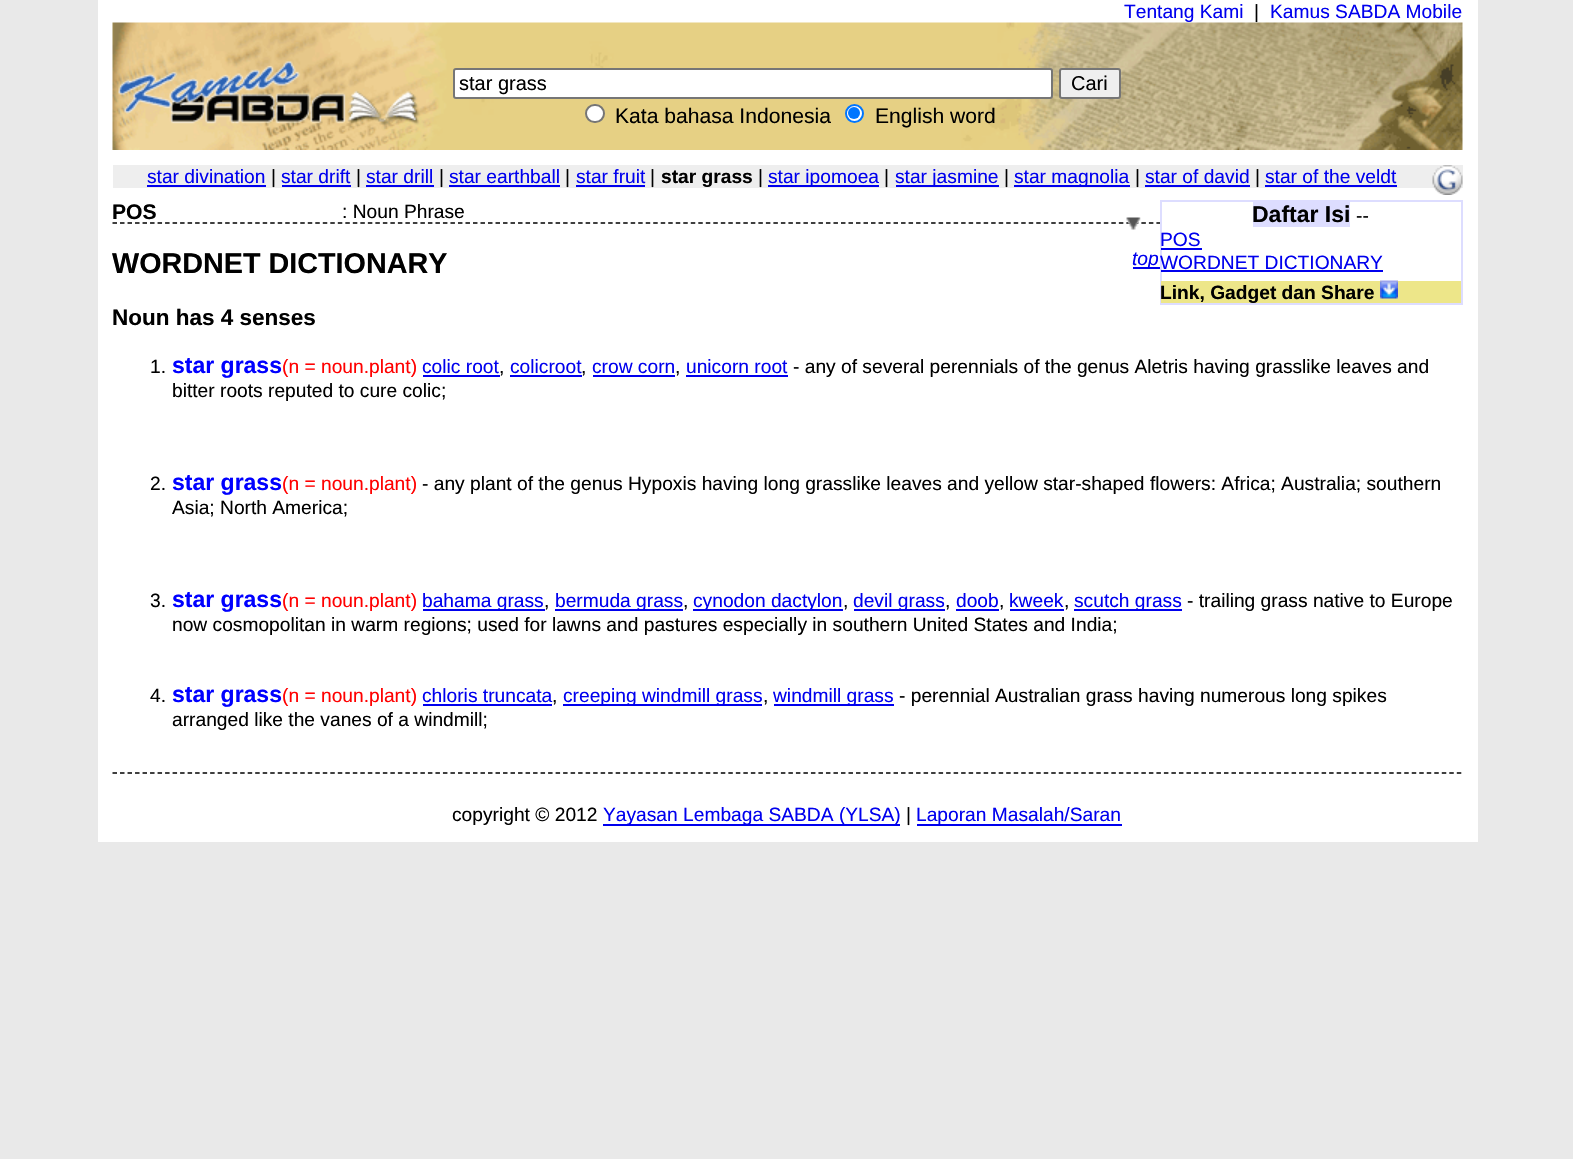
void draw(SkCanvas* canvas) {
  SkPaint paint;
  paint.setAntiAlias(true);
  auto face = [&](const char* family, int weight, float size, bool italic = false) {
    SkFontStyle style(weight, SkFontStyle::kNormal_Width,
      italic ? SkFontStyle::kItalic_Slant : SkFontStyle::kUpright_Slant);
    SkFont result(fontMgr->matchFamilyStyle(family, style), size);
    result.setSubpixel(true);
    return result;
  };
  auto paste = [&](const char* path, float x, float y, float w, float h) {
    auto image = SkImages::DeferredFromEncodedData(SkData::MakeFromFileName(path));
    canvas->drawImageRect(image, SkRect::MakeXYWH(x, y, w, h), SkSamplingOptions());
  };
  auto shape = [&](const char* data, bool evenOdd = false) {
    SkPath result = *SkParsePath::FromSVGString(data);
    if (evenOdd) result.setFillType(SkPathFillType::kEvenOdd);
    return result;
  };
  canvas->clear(0xffe9e9e9);
  paint.setColor(0xffffffff);
  canvas->drawRect(SkRect::MakeXYWH(98, 0, 1380, 842), paint);
  paste("img/1.png", 112, 22, 1351, 128);
  canvas->drawRoundRect(SkRect::MakeXYWH(454, 69, 598, 29), 2, 2, paint);
  paint.setStroke(true);
  paint.setStrokeWidth(2);
  paint.setColor(0xff767676);
  canvas->drawRoundRect(SkRect::MakeXYWH(454, 69, 598, 29), 2, 2, paint);
  paint.setStroke(false);
  paint.setColor(0xffefefef);
  canvas->drawRoundRect(SkRect::MakeXYWH(1060, 69, 60, 29), 2, 2, paint);
  paint.setStroke(true);
  paint.setColor(0xff767676);
  canvas->drawRoundRect(SkRect::MakeXYWH(1060, 69, 60, 29), 2, 2, paint);
  paint.setStroke(false);
  paint.setColor(0xffffffff);
  canvas->drawRoundRect(SkRect::MakeXYWH(586, 105, 18, 17), 8.5f, 8.5f, paint);
  paint.setStroke(true);
  paint.setColor(0xff767676);
  canvas->drawRoundRect(SkRect::MakeXYWH(586, 105, 18, 17), 8.5f, 8.5f, paint);
  paint.setStroke(false);
  paint.setColor(0xffffffff);
  canvas->drawCircle(854.5f, 113.5f, 8.5f, paint);
  paint.setStroke(true);
  paint.setColor(0xff0075ff);
  canvas->drawCircle(854.5f, 113.5f, 8.5f, paint);
  paint.setStroke(false);
  canvas->drawCircle(854, 113, 6, paint);
  {
    const struct { float x, y, w, h; SkColor color; } items[] = {
      {113, 165, 1350, 23, 0xffeeeeee},
      {147, 185, 119, 2, 0xff0000ee},
      {282, 185, 69, 2, 0xff0000ee},
      {366, 185, 68, 2, 0xff0000ee},
      {449, 185, 111, 2, 0xff0000ee},
      {576, 185, 69, 2, 0xff0000ee},
      {768, 185, 111, 2, 0xff0000ee},
      {896, 185, 103, 2, 0xff0000ee},
      {1014, 185, 116, 2, 0xff0000ee},
      {1145, 185, 105, 2, 0xff0000ee},
      {1265, 185, 132, 2, 0xff0000ee},
    };
    for (auto [x, y, w, h, color] : items) {
      paint.setColor(color);
      canvas->drawRect(SkRect::MakeXYWH(x, y, w, h), paint);
    }
  }
  paste("img/2.png", 1432, 165, 31, 30);
  paint.setStroke(true);
  paint.setStrokeWidth(1.5f);
  paint.setColor(0xff000000);
  paint.setPathEffect(SkDashPathEffect::Make({{4.5f, 3.01f}}, 0));
  canvas->drawPath(shape("M112.5 223H1462.5"), paint);
  paint.setPathEffect(nullptr);
  paint.setPathEffect(SkDashPathEffect::Make({{4.5f, 3.01f}}, 0));
  canvas->drawPath(shape("M112.5 773H1462.5"), paint);
  paint.setPathEffect(nullptr);
  paint.setStroke(false);
  {
    const struct { float x, y, w, h; SkColor color; } items[] = {
      {1133, 267, 27, 2, 0xff0000ee},
      {423, 375, 77, 2, 0xff0000ee},
      {510, 375, 72, 2, 0xff0000ee},
      {593, 375, 82, 2, 0xff0000ee},
      {686, 375, 102, 2, 0xff0000ee},
      {423, 609, 122, 2, 0xff0000ee},
      {555, 609, 128, 2, 0xff0000ee},
      {693, 609, 150, 2, 0xff0000ee},
      {854, 609, 91, 2, 0xff0000ee},
      {956, 609, 43, 2, 0xff0000ee},
      {1010, 609, 54, 2, 0xff0000ee},
      {1074, 609, 108, 2, 0xff0000ee},
      {423, 704, 129, 2, 0xff0000ee},
      {563, 704, 199, 2, 0xff0000ee},
      {774, 704, 120, 2, 0xff0000ee},
    };
    for (auto [x, y, w, h, color] : items) {
      paint.setColor(color);
      canvas->drawRect(SkRect::MakeXYWH(x, y, w, h), paint);
    }
  }
  paste("img/3.png", 1126, 217, 15, 13);
  paint.setColor(0xffffffff);
  canvas->drawRect(SkRect::MakeXYWH(1163, 222, 298, 2), paint);
  paint.setStroke(true);
  paint.setStrokeWidth(2);
  paint.setColor(0xffddddff);
  canvas->drawRect(SkRect::MakeXYWH(1161, 201, 301, 103), paint);
  paint.setStroke(false);
  {
    const struct { float x, y, w, h; SkColor color; } items[] = {
      {1253, 202, 97, 25, 0xffddddff},
      {1161, 248, 41, 2, 0xff0000ee},
      {1161, 270, 222, 2, 0xff0000ee},
      {1161, 281, 300, 22, 0xffede689},
    };
    for (auto [x, y, w, h, color] : items) {
      paint.setColor(color);
      canvas->drawRect(SkRect::MakeXYWH(x, y, w, h), paint);
    }
  }
  paste("img/4.png", 1380, 280, 18, 19);
  paint.setColor(0xff0000ee);
  canvas->drawRect(SkRect::MakeXYWH(603, 824, 297, 2), paint);
  canvas->drawRect(SkRect::MakeXYWH(917, 824, 205, 2), paint);
  auto f0 = face("Liberation Sans", 400, 19.2f);
  canvas->drawString("Tentang Kami", 1124, 18, f0, paint);
  paint.setColor(0xff000000);
  canvas->drawString("|", 1254, 18, f0, paint);
  paint.setColor(0xff0000ee);
  canvas->drawString("Kamus SABDA Mobile", 1270, 18, f0, paint);
  auto f1 = face("Liberation Sans", 400, 20);
  paint.setColor(0xff000000);
  canvas->drawString("star grass", 459, 90, f1, paint);
  canvas->drawString("Cari", 1071, 90, f1, paint);
  auto f2 = face("Liberation Sans", 400, 21.1f);
  canvas->drawString("Kata bahasa Indonesia", 615, 123, f2, paint);
  canvas->drawString("English word", 875, 123, f2, paint);
  paint.setColor(0xff0000ee);
  canvas->drawString("star divination", 147, 183, f0, paint);
  paint.setColor(0xff000000);
  canvas->drawString("|", 271, 183, f0, paint);
  paint.setColor(0xff0000ee);
  canvas->drawString("star drift", 281, 183, f0, paint);
  paint.setColor(0xff000000);
  canvas->drawString("|", 356, 183, f0, paint);
  paint.setColor(0xff0000ee);
  canvas->drawString("star drill", 366, 183, f0, paint);
  paint.setColor(0xff000000);
  canvas->drawString("|", 439, 183, f0, paint);
  paint.setColor(0xff0000ee);
  canvas->drawString("star earthball", 449, 183, f0, paint);
  paint.setColor(0xff000000);
  canvas->drawString("|", 565, 183, f0, paint);
  paint.setColor(0xff0000ee);
  canvas->drawString("star fruit", 576, 183, f0, paint);
  paint.setColor(0xff000000);
  canvas->drawString("|", 650, 183, f0, paint);
  auto f3 = face("Liberation Sans", 700, 19.2f);
  canvas->drawString("star grass", 661, 183, f3, paint);
  canvas->drawString("|", 758, 183, f0, paint);
  paint.setColor(0xff0000ee);
  canvas->drawString("star ipomoea", 768, 183, f0, paint);
  paint.setColor(0xff000000);
  canvas->drawString("|", 884, 183, f0, paint);
  paint.setColor(0xff0000ee);
  canvas->drawString("star jasmine", 895, 183, f0, paint);
  paint.setColor(0xff000000);
  canvas->drawString("|", 1004, 183, f0, paint);
  paint.setColor(0xff0000ee);
  canvas->drawString("star magnolia", 1014, 183, f0, paint);
  paint.setColor(0xff000000);
  canvas->drawString("|", 1135, 183, f0, paint);
  paint.setColor(0xff0000ee);
  canvas->drawString("star of david", 1145, 183, f0, paint);
  paint.setColor(0xff000000);
  canvas->drawString("|", 1255, 183, f0, paint);
  paint.setColor(0xff0000ee);
  canvas->drawString("star of the veldt", 1265, 183, f0, paint);
  auto f4 = face("Liberation Sans", 700, 21.1f);
  paint.setColor(0xff000000);
  canvas->drawString("POS", 112, 219, f4, paint);
  canvas->drawString(": Noun Phrase", 342, 218, f0, paint);
  auto f5 = face("Liberation Sans", 700, 28.75f);
  canvas->drawString("WORDNET DICTIONARY", 112, 273, f5, paint);
  auto f6 = face("Liberation Sans", 400, 19.2f, true);
  paint.setColor(0xff0000ee);
  canvas->drawString("top", 1132, 265, f6, paint);
  auto f7 = face("Liberation Sans", 700, 22.5f);
  paint.setColor(0xff000000);
  canvas->drawString("Noun has 4 senses", 112, 325, f7, paint);
  canvas->drawString("1.", 150, 373, f0, paint);
  auto f8 = face("Liberation Sans", 700, 23);
  paint.setColor(0xff0000ff);
  canvas->drawString("star grass", 172, 373, f8, paint);
  paint.setColor(0xffff0000);
  canvas->drawString("(n = noun.plant)", 282, 373, f0, paint);
  paint.setColor(0xff0000ee);
  canvas->drawString("colic root", 422, 373, f0, paint);
  paint.setColor(0xff000000);
  canvas->drawString(",", 499, 373, f0, paint);
  paint.setColor(0xff0000ee);
  canvas->drawString("colicroot", 510, 373, f0, paint);
  paint.setColor(0xff000000);
  canvas->drawString(",", 581, 373, f0, paint);
  paint.setColor(0xff0000ee);
  canvas->drawString("crow corn", 592, 373, f0, paint);
  paint.setColor(0xff000000);
  canvas->drawString(",", 675, 373, f0, paint);
  paint.setColor(0xff0000ee);
  canvas->drawString("unicorn root", 686, 373, f0, paint);
  paint.setColor(0xff000000);
  {
    const struct { const char* s; float x, y; } items[] = {
      {"- any of several perennials of the genus Aletris having grasslike leaves and", 793, 373},
      {"bitter roots reputed to cure colic;", 172, 397},
      {"2.", 150, 490},
    };
    for (auto [s, x, y] : items) {
      canvas->drawString(s, x, y, f0, paint);
    }
  }
  paint.setColor(0xff0000ff);
  canvas->drawString("star grass", 172, 490, f8, paint);
  paint.setColor(0xffff0000);
  canvas->drawString("(n = noun.plant)", 282, 490, f0, paint);
  paint.setColor(0xff000000);
  {
    const struct { const char* s; float x, y; } items[] = {
      {"- any plant of the genus Hypoxis having long grasslike leaves and yellow star-shaped flowers: Africa; Australia; southern", 422, 490},
      {"Asia; North America;", 172, 514},
      {"3.", 150, 607},
    };
    for (auto [s, x, y] : items) {
      canvas->drawString(s, x, y, f0, paint);
    }
  }
  paint.setColor(0xff0000ff);
  canvas->drawString("star grass", 172, 607, f8, paint);
  paint.setColor(0xffff0000);
  canvas->drawString("(n = noun.plant)", 282, 607, f0, paint);
  paint.setColor(0xff0000ee);
  canvas->drawString("bahama grass", 422, 607, f0, paint);
  paint.setColor(0xff000000);
  canvas->drawString(",", 544, 607, f0, paint);
  paint.setColor(0xff0000ee);
  canvas->drawString("bermuda grass", 555, 607, f0, paint);
  paint.setColor(0xff000000);
  canvas->drawString(",", 683, 607, f0, paint);
  paint.setColor(0xff0000ee);
  canvas->drawString("cynodon dactylon", 693, 607, f0, paint);
  paint.setColor(0xff000000);
  canvas->drawString(",", 843, 607, f0, paint);
  paint.setColor(0xff0000ee);
  canvas->drawString("devil grass", 853, 607, f0, paint);
  paint.setColor(0xff000000);
  canvas->drawString(",", 945, 607, f0, paint);
  paint.setColor(0xff0000ee);
  canvas->drawString("doob", 956, 607, f0, paint);
  paint.setColor(0xff000000);
  canvas->drawString(",", 999, 607, f0, paint);
  paint.setColor(0xff0000ee);
  canvas->drawString("kweek", 1009, 607, f0, paint);
  paint.setColor(0xff000000);
  canvas->drawString(",", 1064, 607, f0, paint);
  paint.setColor(0xff0000ee);
  canvas->drawString("scutch grass", 1074, 607, f0, paint);
  paint.setColor(0xff000000);
  {
    const struct { const char* s; float x, y; } items[] = {
      {"- trailing grass native to Europe", 1187, 607},
      {"now cosmopolitan in warm regions; used for lawns and pastures especially in southern United States and India;", 172, 631},
      {"4.", 150, 702},
    };
    for (auto [s, x, y] : items) {
      canvas->drawString(s, x, y, f0, paint);
    }
  }
  paint.setColor(0xff0000ff);
  canvas->drawString("star grass", 172, 702, f8, paint);
  paint.setColor(0xffff0000);
  canvas->drawString("(n = noun.plant)", 282, 702, f0, paint);
  paint.setColor(0xff0000ee);
  canvas->drawString("chloris truncata", 422, 702, f0, paint);
  paint.setColor(0xff000000);
  canvas->drawString(",", 552, 702, f0, paint);
  paint.setColor(0xff0000ee);
  canvas->drawString("creeping windmill grass", 563, 702, f0, paint);
  paint.setColor(0xff000000);
  canvas->drawString(",", 763, 702, f0, paint);
  paint.setColor(0xff0000ee);
  canvas->drawString("windmill grass", 773, 702, f0, paint);
  paint.setColor(0xff000000);
  canvas->drawString("- perennial Australian grass having numerous long spikes", 899, 702, f0, paint);
  canvas->drawString("arranged like the vanes of a windmill;", 172, 726, f0, paint);
  canvas->drawString("Daftar Isi", 1252, 222, f8, paint);
  canvas->drawString("--", 1356, 222, f0, paint);
  paint.setColor(0xff0000ee);
  canvas->drawString("POS", 1160, 246, f0, paint);
  canvas->drawString("WORDNET DICTIONARY", 1160, 269, f0, paint);
  paint.setColor(0xff000000);
  canvas->drawString("Link, Gadget dan Share", 1160, 299, f3, paint);
  canvas->drawString("copyright © 2012", 452, 821, f0, paint);
  paint.setColor(0xff0000ee);
  canvas->drawString("Yayasan Lembaga SABDA (YLSA)", 603, 821, f0, paint);
  paint.setColor(0xff000000);
  canvas->drawString("|", 906, 821, f0, paint);
  paint.setColor(0xff0000ee);
  canvas->drawString("Laporan Masalah/Saran", 916, 821, f0, paint);
}
